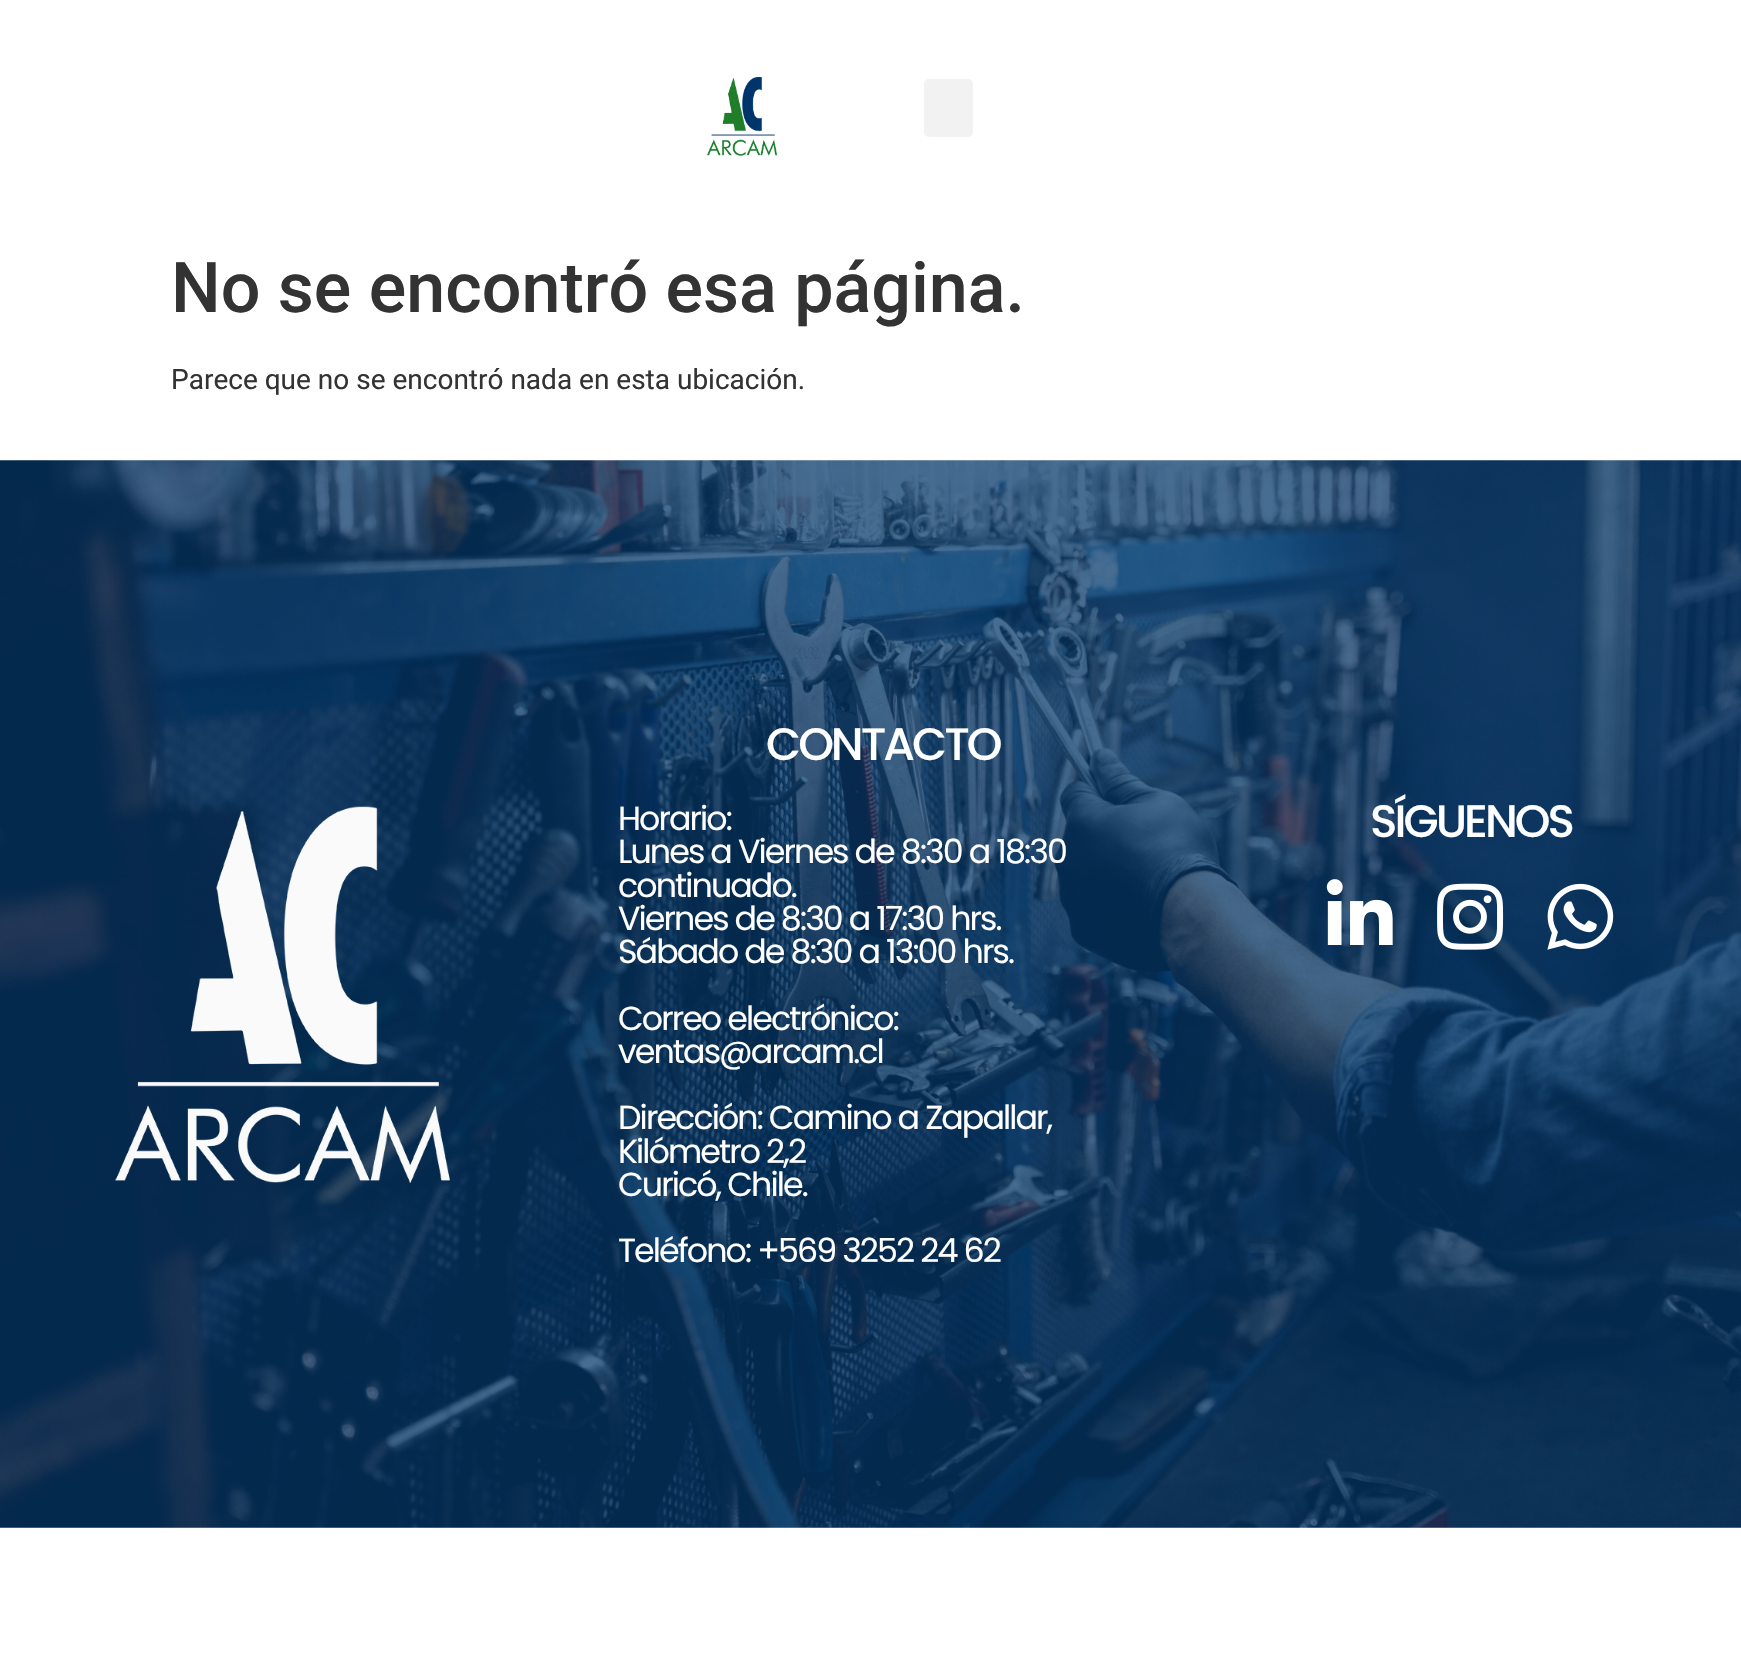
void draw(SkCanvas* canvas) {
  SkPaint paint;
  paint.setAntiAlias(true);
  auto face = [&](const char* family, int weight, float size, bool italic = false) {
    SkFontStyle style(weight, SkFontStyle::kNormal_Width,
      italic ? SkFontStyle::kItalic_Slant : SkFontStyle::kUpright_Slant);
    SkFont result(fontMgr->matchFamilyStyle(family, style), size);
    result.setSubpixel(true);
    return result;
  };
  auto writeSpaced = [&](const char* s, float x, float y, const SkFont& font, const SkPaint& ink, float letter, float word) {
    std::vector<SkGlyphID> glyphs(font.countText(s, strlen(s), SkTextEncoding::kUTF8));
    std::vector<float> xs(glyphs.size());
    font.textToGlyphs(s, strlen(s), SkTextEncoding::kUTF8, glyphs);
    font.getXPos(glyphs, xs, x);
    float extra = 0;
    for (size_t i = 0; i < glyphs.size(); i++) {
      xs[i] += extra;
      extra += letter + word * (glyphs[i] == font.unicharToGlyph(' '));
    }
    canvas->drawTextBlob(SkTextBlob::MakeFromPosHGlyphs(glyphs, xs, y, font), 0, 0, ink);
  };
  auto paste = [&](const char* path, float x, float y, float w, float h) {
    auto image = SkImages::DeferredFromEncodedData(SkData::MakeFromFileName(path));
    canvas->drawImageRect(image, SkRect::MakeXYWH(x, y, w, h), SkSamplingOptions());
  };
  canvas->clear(0xffffffff);
  paste("img/1.png", 707, 77, 70, 79);
  paint.setColor(0xfff2f2f2);
  canvas->drawRoundRect(SkRect::MakeXYWH(924, 79, 49, 58), 5, 5, paint);
  paste("img/2.png", 0, 460, 1741, 1068);
  paste("img/3.png", 115, 806, 335, 377);
  paste("img/4.png", 1326, 879, 67, 66);
  paste("img/5.png", 1437, 883, 67, 67);
  paste("img/6.png", 1547, 883, 67, 67);
  auto f0 = face("Roboto", 500, 70);
  paint.setColor(0xff333333);
  canvas->drawString("No se encontró esa página.", 171, 312, f0, paint);
  auto f1 = face("Roboto", 400, 28);
  canvas->drawString("Parece que no se encontró nada en esta ubicación.", 171, 389, f1, paint);
  auto f2 = face("Poppins", 500, 45.5f);
  paint.setColor(0xffffffff);
  writeSpaced("CONTACTO", 766, 760, f2, paint, -3, 0);
  auto f3 = face("Poppins", 400, 33.25f);
  {
    const struct { const char* s; float x, y; } items[] = {
      {"Horario:", 618, 830},
      {"Lunes a Viernes de 8:30 a 18:30", 618, 863},
      {"continuado.", 618, 897},
      {"Viernes de 8:30 a 17:30 hrs.", 618, 930},
      {"Sábado de 8:30 a 13:00 hrs.", 618, 963},
      {"Correo electrónico:", 618, 1030},
      {"ventas@arcam.cl", 618, 1063},
      {"Dirección: Camino a Zapallar,", 618, 1129},
      {"Kilómetro 2,2", 618, 1163},
      {"Curicó, Chile.", 618, 1196},
      {"Teléfono: +569 3252 24 62", 618, 1262},
    };
    for (auto [s, x, y] : items) {
      writeSpaced(s, x, y, f3, paint, -1.9f, 0);
    }
  }
  writeSpaced("SÍGUENOS", 1370, 837, f2, paint, -3, 0);
}
